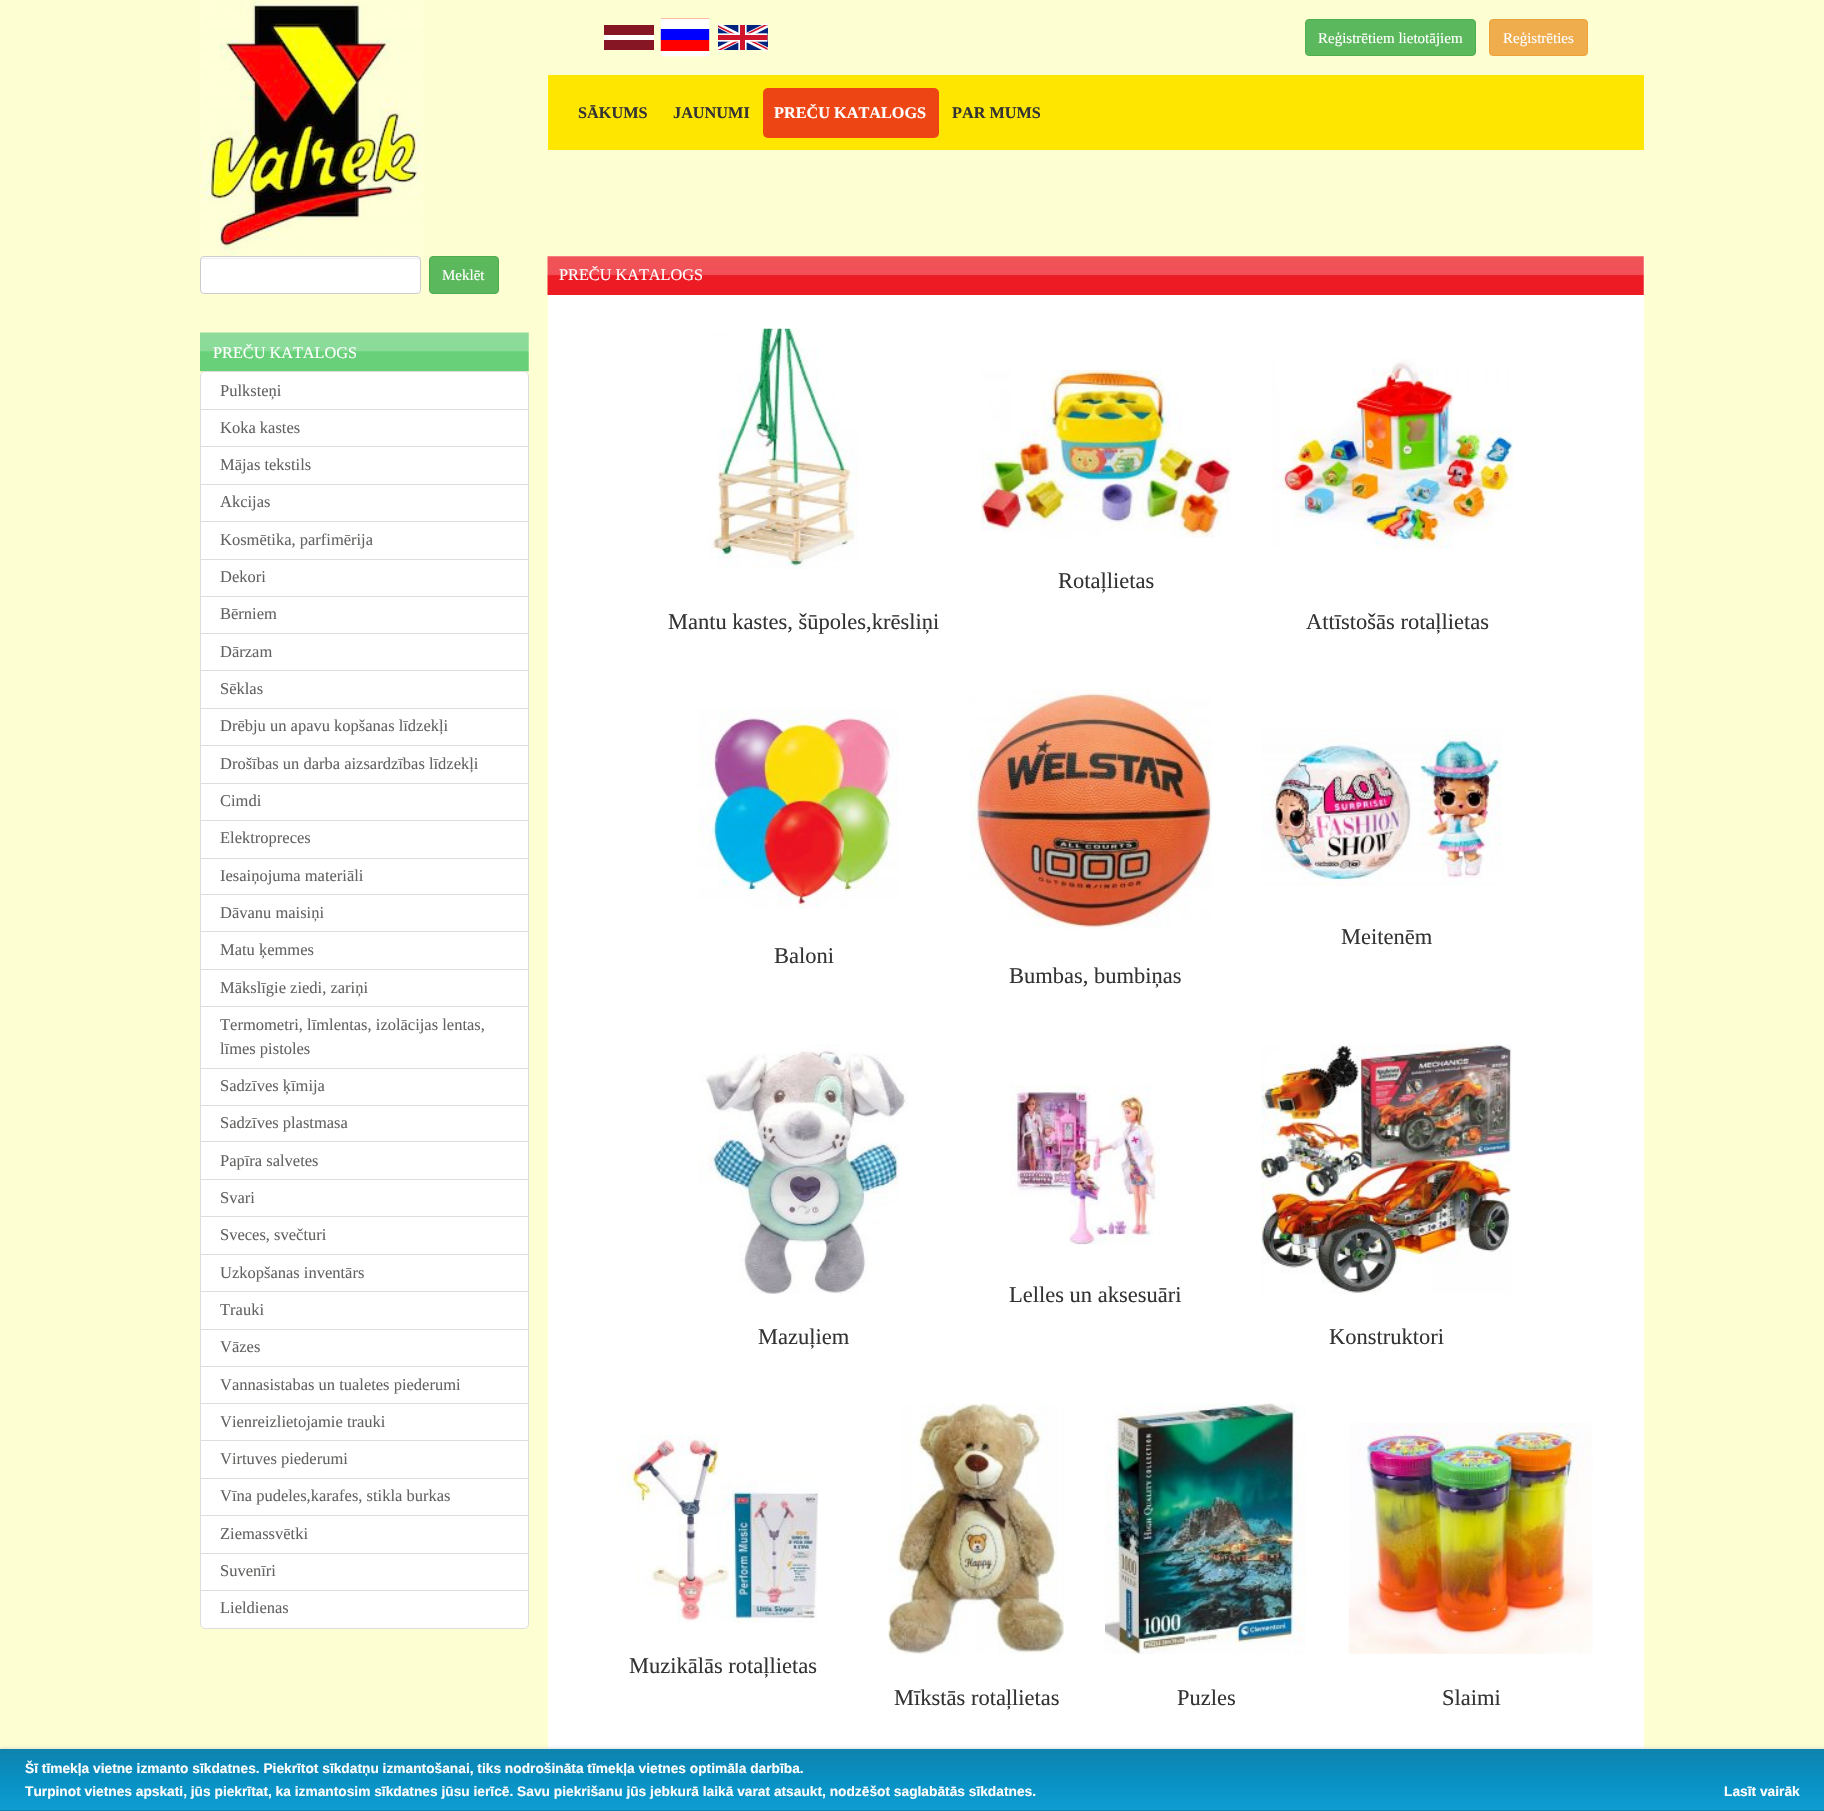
void draw(SkCanvas* canvas) {
  SkPaint paint;
  paint.setAntiAlias(true);
  auto face = [&](const char* family, int weight, float size, bool italic = false) {
    SkFontStyle style(weight, SkFontStyle::kNormal_Width,
      italic ? SkFontStyle::kItalic_Slant : SkFontStyle::kUpright_Slant);
    SkFont result(fontMgr->matchFamilyStyle(family, style), size);
    result.setSubpixel(true);
    return result;
  };
  auto paste = [&](const char* path, float x, float y, float w, float h) {
    auto image = SkImages::DeferredFromEncodedData(SkData::MakeFromFileName(path));
    canvas->drawImageRect(image, SkRect::MakeXYWH(x, y, w, h), SkSamplingOptions());
  };
  auto shape = [&](const char* data, bool evenOdd = false) {
    SkPath result = *SkParsePath::FromSVGString(data);
    if (evenOdd) result.setFillType(SkPathFillType::kEvenOdd);
    return result;
  };
  canvas->clear(0xfffdffd2);
  paste("img/1.png", 200, 0, 223, 256);
  paint.setColor(0xff861623);
  canvas->drawRect(SkRect::MakeXYWH(604, 25, 50, 25), paint);
  paint.setColor(0xffffffff);
  canvas->drawRect(SkRect::MakeXYWH(604, 35, 50, 5), paint);
  paste("img/2.png", 660, 18, 50, 39);
  paste("img/3.png", 718, 23, 50, 29);
  paint.setColor(0xff5cb85c);
  canvas->drawRoundRect(SkRect::MakeXYWH(1305.5f, 19.5f, 170, 36), 3.5f, 3.5f, paint);
  paint.setStroke(true);
  paint.setStrokeWidth(1);
  paint.setColor(0xff4cae4c);
  canvas->drawRoundRect(SkRect::MakeXYWH(1305.5f, 19.5f, 170, 36), 3.5f, 3.5f, paint);
  paint.setStroke(false);
  paint.setColor(0xfff0ad4e);
  canvas->drawRoundRect(SkRect::MakeXYWH(1489.5f, 19.5f, 98, 36), 3.5f, 3.5f, paint);
  paint.setStroke(true);
  paint.setColor(0xffeea236);
  canvas->drawRoundRect(SkRect::MakeXYWH(1489.5f, 19.5f, 98, 36), 3.5f, 3.5f, paint);
  paint.setStroke(false);
  paint.setColor(0xffffe600);
  canvas->drawRect(SkRect::MakeXYWH(548, 75, 1096, 75), paint);
  paint.setColor(0xffee4514);
  canvas->drawRoundRect(SkRect::MakeXYWH(763, 88, 176, 50), 5, 5, paint);
  paint.setColor(0xffffffff);
  canvas->drawRoundRect(SkRect::MakeXYWH(200, 256, 221, 38), 4, 4, paint);
  paint.setColor(0xffececec);
  canvas->drawPath(shape("M204 259H418C419 259 420 260 420 261C420 259 419 258 418 258H204C202 258 201 259 201 261C201 260 202 259 204 259Z"), paint);
  paint.setStroke(true);
  paint.setColor(0xffcccccc);
  canvas->drawRoundRect(SkRect::MakeXYWH(200.5f, 256.5f, 220, 37), 3.5f, 3.5f, paint);
  paint.setStroke(false);
  paint.setColor(0xff5cb85c);
  canvas->drawRoundRect(SkRect::MakeXYWH(429.5f, 256.5f, 69, 37), 3.5f, 3.5f, paint);
  paint.setStroke(true);
  paint.setColor(0xff4cae4c);
  canvas->drawRoundRect(SkRect::MakeXYWH(429.5f, 256.5f, 69, 37), 3.5f, 3.5f, paint);
  paste("img/4.png", 200, 332, 329, 40);
  paint.setStroke(false);
  paint.setColor(0xffffffff);
  canvas->drawPath(shape("M205 371.5H524C526.5 371.5 528.5 373.5 528.5 376V409.5H200.5V376C200.5 373.5 202.5 371.5 205 371.5Z"), paint);
  paint.setStroke(true);
  paint.setColor(0xffdddddd);
  canvas->drawPath(shape("M205 371.5H524C526.5 371.5 528.5 373.5 528.5 376V409.5H200.5V376C200.5 373.5 202.5 371.5 205 371.5Z"), paint);
  paint.setStroke(false);
  paint.setColor(0xffffffff);
  canvas->drawRect(SkRect::MakeXYWH(201, 410, 327, 36), paint);
  paint.setStroke(true);
  paint.setColor(0xffdddddd);
  canvas->drawRect(SkRect::MakeXYWH(200.5f, 409.5f, 328, 38), paint);
  paint.setStroke(false);
  paint.setColor(0xffffffff);
  canvas->drawRect(SkRect::MakeXYWH(200.5f, 446.5f, 328, 38), paint);
  paint.setStroke(true);
  paint.setColor(0xffdddddd);
  canvas->drawRect(SkRect::MakeXYWH(200.5f, 446.5f, 328, 38), paint);
  paint.setStroke(false);
  paint.setColor(0xffffffff);
  canvas->drawRect(SkRect::MakeXYWH(201, 485, 327, 36), paint);
  paint.setStroke(true);
  paint.setColor(0xffdddddd);
  canvas->drawRect(SkRect::MakeXYWH(200.5f, 484.5f, 328, 38), paint);
  paint.setStroke(false);
  paint.setColor(0xffffffff);
  canvas->drawRect(SkRect::MakeXYWH(200.5f, 521.5f, 328, 38), paint);
  paint.setStroke(true);
  paint.setColor(0xffdddddd);
  canvas->drawRect(SkRect::MakeXYWH(200.5f, 521.5f, 328, 38), paint);
  paint.setStroke(false);
  paint.setColor(0xffffffff);
  canvas->drawRect(SkRect::MakeXYWH(201, 560, 327, 36), paint);
  paint.setStroke(true);
  paint.setColor(0xffdddddd);
  canvas->drawRect(SkRect::MakeXYWH(200.5f, 559.5f, 328, 38), paint);
  paint.setStroke(false);
  paint.setColor(0xffffffff);
  canvas->drawRect(SkRect::MakeXYWH(200.5f, 596.5f, 328, 37), paint);
  paint.setStroke(true);
  paint.setColor(0xffdddddd);
  canvas->drawRect(SkRect::MakeXYWH(200.5f, 596.5f, 328, 37), paint);
  paint.setStroke(false);
  paint.setColor(0xffffffff);
  canvas->drawRect(SkRect::MakeXYWH(200.5f, 633.5f, 328, 37), paint);
  paint.setStroke(true);
  paint.setColor(0xffdddddd);
  canvas->drawRect(SkRect::MakeXYWH(200.5f, 633.5f, 328, 37), paint);
  paint.setStroke(false);
  paint.setColor(0xffffffff);
  canvas->drawRect(SkRect::MakeXYWH(200.5f, 670.5f, 328, 38), paint);
  paint.setStroke(true);
  paint.setColor(0xffdddddd);
  canvas->drawRect(SkRect::MakeXYWH(200.5f, 670.5f, 328, 38), paint);
  paint.setStroke(false);
  paint.setColor(0xffffffff);
  canvas->drawRect(SkRect::MakeXYWH(200.5f, 708.5f, 328, 37), paint);
  paint.setStroke(true);
  paint.setColor(0xffdddddd);
  canvas->drawRect(SkRect::MakeXYWH(200.5f, 708.5f, 328, 37), paint);
  paint.setStroke(false);
  paint.setColor(0xffffffff);
  canvas->drawRect(SkRect::MakeXYWH(200.5f, 745.5f, 328, 38), paint);
  paint.setStroke(true);
  paint.setColor(0xffdddddd);
  canvas->drawRect(SkRect::MakeXYWH(200.5f, 745.5f, 328, 38), paint);
  paint.setStroke(false);
  paint.setColor(0xffffffff);
  canvas->drawRect(SkRect::MakeXYWH(200.5f, 783.5f, 328, 37), paint);
  paint.setStroke(true);
  paint.setColor(0xffdddddd);
  canvas->drawRect(SkRect::MakeXYWH(200.5f, 783.5f, 328, 37), paint);
  paint.setStroke(false);
  paint.setColor(0xffffffff);
  canvas->drawRect(SkRect::MakeXYWH(200.5f, 820.5f, 328, 38), paint);
  paint.setStroke(true);
  paint.setColor(0xffdddddd);
  canvas->drawRect(SkRect::MakeXYWH(200.5f, 820.5f, 328, 38), paint);
  paint.setStroke(false);
  paint.setColor(0xffffffff);
  canvas->drawRect(SkRect::MakeXYWH(200.5f, 858.5f, 328, 36), paint);
  paint.setStroke(true);
  paint.setColor(0xffdddddd);
  canvas->drawRect(SkRect::MakeXYWH(200.5f, 858.5f, 328, 36), paint);
  paint.setStroke(false);
  paint.setColor(0xffffffff);
  canvas->drawRect(SkRect::MakeXYWH(201, 895, 327, 36), paint);
  paint.setStroke(true);
  paint.setColor(0xffdddddd);
  canvas->drawRect(SkRect::MakeXYWH(200.5f, 894.5f, 328, 38), paint);
  paint.setStroke(false);
  paint.setColor(0xffffffff);
  canvas->drawRect(SkRect::MakeXYWH(200.5f, 931.5f, 328, 38), paint);
  paint.setStroke(true);
  paint.setColor(0xffdddddd);
  canvas->drawRect(SkRect::MakeXYWH(200.5f, 931.5f, 328, 38), paint);
  paint.setStroke(false);
  paint.setColor(0xffffffff);
  canvas->drawRect(SkRect::MakeXYWH(201, 970, 327, 36), paint);
  paint.setStroke(true);
  paint.setColor(0xffdddddd);
  canvas->drawRect(SkRect::MakeXYWH(200.5f, 969.5f, 328, 38), paint);
  paint.setStroke(false);
  paint.setColor(0xffffffff);
  canvas->drawRect(SkRect::MakeXYWH(200.5f, 1006.5f, 328, 62), paint);
  paint.setStroke(true);
  paint.setColor(0xffdddddd);
  canvas->drawRect(SkRect::MakeXYWH(200.5f, 1006.5f, 328, 62), paint);
  paint.setStroke(false);
  paint.setColor(0xffffffff);
  canvas->drawRect(SkRect::MakeXYWH(200.5f, 1068.5f, 328, 37), paint);
  paint.setStroke(true);
  paint.setColor(0xffdddddd);
  canvas->drawRect(SkRect::MakeXYWH(200.5f, 1068.5f, 328, 37), paint);
  paint.setStroke(false);
  paint.setColor(0xffffffff);
  canvas->drawRect(SkRect::MakeXYWH(201, 1106, 327, 35), paint);
  paint.setStroke(true);
  paint.setColor(0xffdddddd);
  canvas->drawRect(SkRect::MakeXYWH(200.5f, 1105.5f, 328, 37), paint);
  paint.setStroke(false);
  paint.setColor(0xffffffff);
  canvas->drawRect(SkRect::MakeXYWH(200.5f, 1141.5f, 328, 38), paint);
  paint.setStroke(true);
  paint.setColor(0xffdddddd);
  canvas->drawRect(SkRect::MakeXYWH(200.5f, 1141.5f, 328, 38), paint);
  paint.setStroke(false);
  paint.setColor(0xffffffff);
  canvas->drawRect(SkRect::MakeXYWH(201, 1180, 327, 36), paint);
  paint.setStroke(true);
  paint.setColor(0xffdddddd);
  canvas->drawRect(SkRect::MakeXYWH(200.5f, 1179.5f, 328, 38), paint);
  paint.setStroke(false);
  paint.setColor(0xffffffff);
  canvas->drawRect(SkRect::MakeXYWH(200.5f, 1216.5f, 328, 38), paint);
  paint.setStroke(true);
  paint.setColor(0xffdddddd);
  canvas->drawRect(SkRect::MakeXYWH(200.5f, 1216.5f, 328, 38), paint);
  paint.setStroke(false);
  paint.setColor(0xffffffff);
  canvas->drawRect(SkRect::MakeXYWH(201, 1255, 327, 36), paint);
  paint.setStroke(true);
  paint.setColor(0xffdddddd);
  canvas->drawRect(SkRect::MakeXYWH(200.5f, 1254.5f, 328, 38), paint);
  paint.setStroke(false);
  paint.setColor(0xffffffff);
  canvas->drawRect(SkRect::MakeXYWH(200.5f, 1291.5f, 328, 38), paint);
  paint.setStroke(true);
  paint.setColor(0xffdddddd);
  canvas->drawRect(SkRect::MakeXYWH(200.5f, 1291.5f, 328, 38), paint);
  paint.setStroke(false);
  paint.setColor(0xffffffff);
  canvas->drawRect(SkRect::MakeXYWH(201, 1330, 327, 36), paint);
  paint.setStroke(true);
  paint.setColor(0xffdddddd);
  canvas->drawRect(SkRect::MakeXYWH(200.5f, 1329.5f, 328, 38), paint);
  paint.setStroke(false);
  paint.setColor(0xffffffff);
  canvas->drawRect(SkRect::MakeXYWH(200.5f, 1366.5f, 328, 37), paint);
  paint.setStroke(true);
  paint.setColor(0xffdddddd);
  canvas->drawRect(SkRect::MakeXYWH(200.5f, 1366.5f, 328, 37), paint);
  paint.setStroke(false);
  paint.setColor(0xffffffff);
  canvas->drawRect(SkRect::MakeXYWH(200.5f, 1403.5f, 328, 37), paint);
  paint.setStroke(true);
  paint.setColor(0xffdddddd);
  canvas->drawRect(SkRect::MakeXYWH(200.5f, 1403.5f, 328, 37), paint);
  paint.setStroke(false);
  paint.setColor(0xffffffff);
  canvas->drawRect(SkRect::MakeXYWH(200.5f, 1440.5f, 328, 38), paint);
  paint.setStroke(true);
  paint.setColor(0xffdddddd);
  canvas->drawRect(SkRect::MakeXYWH(200.5f, 1440.5f, 328, 38), paint);
  paint.setStroke(false);
  paint.setColor(0xffffffff);
  canvas->drawRect(SkRect::MakeXYWH(200.5f, 1478.5f, 328, 37), paint);
  paint.setStroke(true);
  paint.setColor(0xffdddddd);
  canvas->drawRect(SkRect::MakeXYWH(200.5f, 1478.5f, 328, 37), paint);
  paint.setStroke(false);
  paint.setColor(0xffffffff);
  canvas->drawRect(SkRect::MakeXYWH(200.5f, 1515.5f, 328, 38), paint);
  paint.setStroke(true);
  paint.setColor(0xffdddddd);
  canvas->drawRect(SkRect::MakeXYWH(200.5f, 1515.5f, 328, 38), paint);
  paint.setStroke(false);
  paint.setColor(0xffffffff);
  canvas->drawRect(SkRect::MakeXYWH(200.5f, 1553.5f, 328, 37), paint);
  paint.setStroke(true);
  paint.setColor(0xffdddddd);
  canvas->drawRect(SkRect::MakeXYWH(200.5f, 1553.5f, 328, 37), paint);
  paint.setStroke(false);
  paint.setColor(0xffffffff);
  canvas->drawPath(shape("M200.5 1590.5H528.5V1624C528.5 1626.5 526.5 1628.5 524 1628.5H205C202.5 1628.5 200.5 1626.5 200.5 1624Z"), paint);
  paint.setStroke(true);
  paint.setColor(0xffdddddd);
  canvas->drawPath(shape("M200.5 1590.5H528.5V1624C528.5 1626.5 526.5 1628.5 524 1628.5H205C202.5 1628.5 200.5 1626.5 200.5 1624Z"), paint);
  paint.setStroke(false);
  paint.setColor(0xffffffff);
  canvas->drawRect(SkRect::MakeXYWH(548, 256, 1096, 1493), paint);
  paste("img/5.png", 547, 256, 1097, 39);
  paste("img/6.png", 981, 370, 251, 168);
  paste("img/7.png", 709, 328, 150, 241);
  paste("img/8.png", 1272, 358, 242, 191);
  paste("img/9.png", 1261, 729, 241, 157);
  paste("img/10.png", 698, 709, 201, 200);
  paste("img/11.png", 970, 689, 242, 240);
  paste("img/12.png", 1010, 1085, 150, 160);
  paste("img/13.png", 699, 1044, 209, 250);
  paste("img/14.png", 1261, 1044, 251, 250);
  paste("img/15.png", 617, 1435, 202, 188);
  paste("img/16.png", 888, 1403, 176, 251);
  paste("img/17.png", 1105, 1403, 201, 251);
  paste("img/18.png", 1348, 1423, 245, 231);
  paint.setColor(0xffcccccc);
  paint.setMaskFilter(SkMaskFilter::MakeBlur(kNormal_SkBlurStyle, 2));
  canvas->drawRect(SkRect::MakeXYWH(0, 1749, 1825, 62), paint);
  paint.setMaskFilter(nullptr);
  {
    const SkColor colors[] = {0xff0e83ae, 0xff0990c3, 0xff0e9dd2};
    const float stops[] = {0, 0.5f, 1};
    const SkPoint ends[] = {{913, 1749}, {913, 1810}};
    paint.setShader(SkGradientShader::MakeLinear(ends, colors, stops, 3, SkTileMode::kClamp));
    paint.setAlpha(255);
  }
  canvas->drawRect(SkRect::MakeXYWH(0, 1749, 1824, 61), paint);
  {
    const SkColor colors[] = {0xff0e83ae, 0xff0990c3, 0xff0e9dd2};
    const float stops[] = {0, 0.5f, 1};
    const SkPoint ends[] = {{913, 1810}, {913, 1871}};
    paint.setShader(SkGradientShader::MakeLinear(ends, colors, stops, 3, SkTileMode::kClamp));
    paint.setAlpha(255);
  }
  canvas->drawRect(SkRect::MakeXYWH(0, 1810, 1824, 1), paint);
  auto f0 = face("Liberation Serif", 400, 15);
  paint.setShader(nullptr);
  paint.setColor(0xffffffff);
  canvas->drawString("Reģistrētiem lietotājiem", 1318, 43, f0, paint);
  canvas->drawString("Reģistrēties", 1503, 43, f0, paint);
  auto f1 = face("Liberation Serif", 700, 16.25f);
  paint.setColor(0xff333333);
  canvas->drawString("SĀKUMS", 578, 118, f1, paint);
  canvas->drawString("JAUNUMI", 673, 118, f1, paint);
  paint.setColor(0xffffffff);
  canvas->drawString("PREČU KATALOGS", 774, 118, f1, paint);
  paint.setColor(0xff333333);
  canvas->drawString("PAR MUMS", 952, 118, f1, paint);
  paint.setColor(0xffffffff);
  canvas->drawString("Meklēt", 442, 280, f0, paint);
  auto f2 = face("Liberation Serif", 400, 16.25f);
  canvas->drawString("PREČU KATALOGS", 213, 358, f2, paint);
  auto f3 = face("Liberation Serif", 400, 16.5f);
  paint.setColor(0xff636362);
  {
    const struct { const char* s; float x, y; } items[] = {
      {"Pulksteņi", 220, 396},
      {"Koka kastes", 220, 433},
      {"Mājas tekstils", 220, 470},
      {"Akcijas", 220, 507},
      {"Kosmētika, parfimērija", 220, 545},
      {"Dekori", 220, 582},
      {"Bērniem", 220, 619},
      {"Dārzam", 220, 657},
      {"Sēklas", 220, 694},
      {"Drēbju un apavu kopšanas līdzekļi", 220, 731},
      {"Drošības un darba aizsardzības līdzekļi", 220, 769},
      {"Cimdi", 220, 806},
      {"Elektropreces", 220, 843},
      {"Iesaiņojuma materiāli", 220, 881},
      {"Dāvanu maisiņi", 220, 918},
      {"Matu ķemmes", 220, 955},
      {"Mākslīgie ziedi, zariņi", 220, 993},
      {"Termometri, līmlentas, izolācijas lentas,", 220, 1030},
      {"līmes pistoles", 220, 1054},
      {"Sadzīves ķīmija", 220, 1091},
      {"Sadzīves plastmasa", 220, 1128},
      {"Papīra salvetes", 220, 1166},
      {"Svari", 220, 1203},
      {"Sveces, svečturi", 220, 1240},
      {"Uzkopšanas inventārs", 220, 1278},
      {"Trauki", 220, 1315},
      {"Vāzes", 220, 1352},
      {"Vannasistabas un tualetes piederumi", 220, 1390},
      {"Vienreizlietojamie trauki", 220, 1427},
      {"Virtuves piederumi", 220, 1464},
      {"Vīna pudeles,karafes, stikla burkas", 220, 1501},
      {"Ziemassvētki", 220, 1539},
      {"Suvenīri", 220, 1576},
      {"Lieldienas", 220, 1613},
    };
    for (auto [s, x, y] : items) {
      canvas->drawString(s, x, y, f3, paint);
    }
  }
  paint.setColor(0xffffffff);
  canvas->drawString("PREČU KATALOGS", 559, 280, f2, paint);
  auto f4 = face("Liberation Serif", 400, 22.5f);
  paint.setColor(0xff333333);
  {
    const struct { const char* s; float x, y; } items[] = {
      {"Rotaļlietas", 1058, 588},
      {"Mantu kastes, šūpoles,krēsliņi", 668, 629},
      {"Attīstošās rotaļlietas", 1306, 629},
      {"Meitenēm", 1341, 944},
      {"Baloni", 774, 963},
      {"Bumbas, bumbiņas", 1009, 983},
      {"Lelles un aksesuāri", 1009, 1302},
      {"Mazuļiem", 758, 1344},
      {"Konstruktori", 1329, 1344},
      {"Muzikālās rotaļlietas", 629, 1673},
      {"Mīkstās rotaļlietas", 894, 1705},
      {"Puzles", 1177, 1705},
      {"Slaimi", 1442, 1705},
    };
    for (auto [s, x, y] : items) {
      canvas->drawString(s, x, y, f4, paint);
    }
  }
  auto f5 = face("Liberation Sans", 700, 13.75f);
  paint.setColor(0xffffffff);
  {
    const struct { const char* s; float x, y; } items[] = {
      {"Šī tīmekļa vietne izmanto sīkdatnes. Piekrītot sīkdatņu izmantošanai, tiks nodrošināta tīmekļa vietnes optimāla darbība.", 25, 1773},
      {"Turpinot vietnes apskati, jūs piekrītat, ka izmantosim sīkdatnes jūsu ierīcē. Savu piekrišanu jūs jebkurā laikā varat atsaukt, nodzēšot saglabātās sīkdatnes.", 25, 1796},
      {"Lasīt vairāk", 1724, 1796},
    };
    for (auto [s, x, y] : items) {
      canvas->drawString(s, x, y, f5, paint);
    }
  }
}
